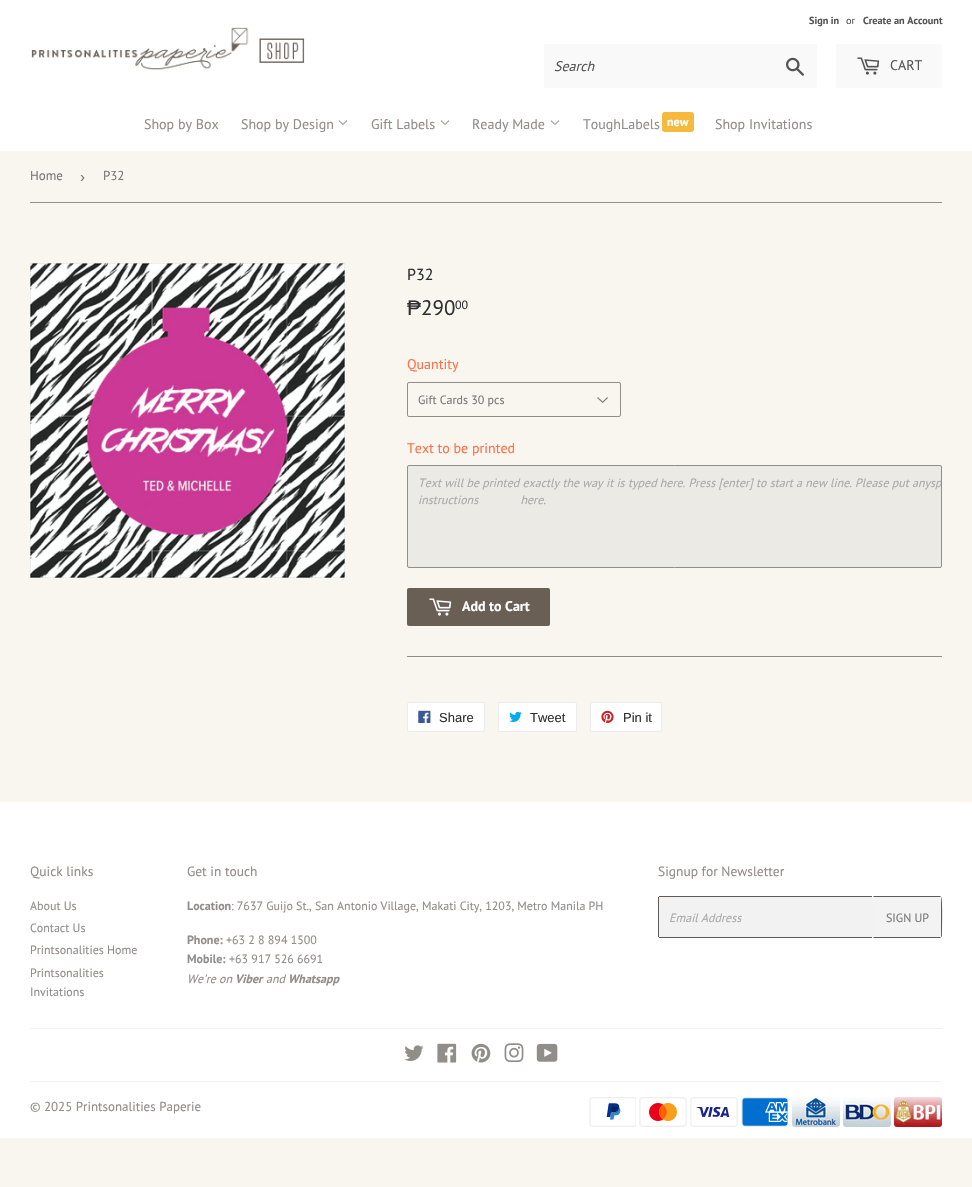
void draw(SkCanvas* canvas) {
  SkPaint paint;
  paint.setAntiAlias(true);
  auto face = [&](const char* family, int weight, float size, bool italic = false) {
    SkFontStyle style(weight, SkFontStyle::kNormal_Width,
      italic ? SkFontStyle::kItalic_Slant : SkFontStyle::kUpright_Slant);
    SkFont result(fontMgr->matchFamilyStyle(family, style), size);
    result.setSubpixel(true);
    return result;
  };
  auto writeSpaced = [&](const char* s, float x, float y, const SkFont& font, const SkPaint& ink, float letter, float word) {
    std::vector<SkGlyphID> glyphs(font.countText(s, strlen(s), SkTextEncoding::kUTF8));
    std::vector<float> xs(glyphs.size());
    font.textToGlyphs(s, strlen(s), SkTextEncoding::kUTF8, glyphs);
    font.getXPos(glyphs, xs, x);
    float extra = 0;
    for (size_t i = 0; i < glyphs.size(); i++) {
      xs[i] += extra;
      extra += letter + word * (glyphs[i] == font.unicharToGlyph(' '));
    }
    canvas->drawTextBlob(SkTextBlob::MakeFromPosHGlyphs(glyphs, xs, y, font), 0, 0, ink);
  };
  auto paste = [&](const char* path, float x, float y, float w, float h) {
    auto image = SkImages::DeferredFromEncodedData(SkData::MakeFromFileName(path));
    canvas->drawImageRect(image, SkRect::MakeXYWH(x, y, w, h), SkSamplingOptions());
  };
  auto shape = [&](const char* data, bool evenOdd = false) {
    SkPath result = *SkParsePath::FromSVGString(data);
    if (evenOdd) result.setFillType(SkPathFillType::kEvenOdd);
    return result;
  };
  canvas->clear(0xfff9f6f0);
  paint.setColor(0xffffffff);
  canvas->drawRect(SkRect::MakeXYWH(0, 0, 972, 151), paint);
  paste("img/1.png", 31, 27, 274, 43);
  paint.setColor(0xfff9f9f9);
  canvas->drawRoundRect(SkRect::MakeXYWH(544, 44, 273, 44), 2, 2, paint);
  paste("img/2.png", 786, 57, 18, 19);
  canvas->drawRoundRect(SkRect::MakeXYWH(836, 44, 106, 44), 2, 2, paint);
  paste("img/3.png", 857, 57, 23, 18);
  paste("img/4.png", 338, 120, 10, 5);
  paste("img/4.png", 440, 120, 10, 5);
  paste("img/4.png", 550, 120, 10, 5);
  paint.setColor(0xfff5ba3d);
  canvas->drawRoundRect(SkRect::MakeXYWH(662, 112, 32, 20), 3, 3, paint);
  paint.setColor(0xff918d89);
  canvas->drawRect(SkRect::MakeXYWH(30, 202, 912, 1), paint);
  paste("img/5.png", 30, 263, 315, 315);
  paste("img/6.png", 597, 397, 11, 6);
  paint.setStroke(true);
  paint.setStrokeWidth(1);
  canvas->drawRoundRect(SkRect::MakeXYWH(407.5f, 382.5f, 213, 34), 1.5f, 1.5f, paint);
  paint.setStroke(false);
  paint.setColor(0xffeceae4);
  canvas->drawRoundRect(SkRect::MakeXYWH(407.5f, 465.5f, 534, 102), 1.5f, 1.5f, paint);
  paint.setStroke(true);
  paint.setColor(0xff918d89);
  canvas->drawRoundRect(SkRect::MakeXYWH(407.5f, 465.5f, 534, 102), 1.5f, 1.5f, paint);
  paint.setStroke(false);
  paint.setColor(0xff695f55);
  canvas->drawRoundRect(SkRect::MakeXYWH(407, 588, 143, 38), 2, 2, paint);
  paste("img/7.png", 429, 598, 23, 18);
  paint.setColor(0xff918d89);
  canvas->drawRect(SkRect::MakeXYWH(407, 656, 535, 1), paint);
  paint.setColor(0xffffffff);
  canvas->drawRoundRect(SkRect::MakeXYWH(407.5f, 702.5f, 77, 29), 1.5f, 1.5f, paint);
  paint.setStroke(true);
  paint.setColor(0xffececec);
  canvas->drawRoundRect(SkRect::MakeXYWH(407.5f, 702.5f, 77, 29), 1.5f, 1.5f, paint);
  paste("img/8.png", 418, 710, 13, 13);
  paint.setStroke(false);
  paint.setColor(0xffffffff);
  canvas->drawRoundRect(SkRect::MakeXYWH(498.5f, 702.5f, 78, 29), 1.5f, 1.5f, paint);
  paint.setStroke(true);
  paint.setColor(0xffececec);
  canvas->drawRoundRect(SkRect::MakeXYWH(498.5f, 702.5f, 78, 29), 1.5f, 1.5f, paint);
  paste("img/9.png", 509, 711, 13, 11);
  paint.setStroke(false);
  paint.setColor(0xffffffff);
  canvas->drawRoundRect(SkRect::MakeXYWH(590.5f, 702.5f, 71, 29), 1.5f, 1.5f, paint);
  paint.setStroke(true);
  paint.setColor(0xffececec);
  canvas->drawRoundRect(SkRect::MakeXYWH(590.5f, 702.5f, 71, 29), 1.5f, 1.5f, paint);
  paste("img/10.png", 601, 710, 13, 13);
  paint.setStroke(false);
  paint.setColor(0xffffffff);
  canvas->drawRect(SkRect::MakeXYWH(0, 802, 972, 336), paint);
  paint.setColor(0xfff2f2f2);
  canvas->drawRoundRect(SkRect::MakeXYWH(658, 896, 215, 42), 2, 2, paint);
  {
    const struct { float x, y, w, h; SkColor color; } items[] = {
      {659, 896, 213, 1, 0xff5d5a57},
      {659, 937, 213, 1, 0xff5d5a57},
      {658, 897, 1, 40, 0xff5d5a57},
    };
    for (auto [x, y, w, h, color] : items) {
      paint.setColor(color);
      canvas->drawRect(SkRect::MakeXYWH(x, y, w, h), paint);
    }
  }
  paint.setColor(0xfff3f3f3);
  canvas->drawPath(shape("M873 896H940C941 896 942 897 942 898V936C942 937 941 938 940 938H873Z"), paint);
  paint.setColor(0xff5d5a57);
  canvas->drawPath(shape("M873 896L874 897H941L940 896Z"), paint);
  canvas->drawPath(shape("M942 936C942 931 943 898 941 897V937Z"), paint);
  canvas->drawPath(shape("M940 938L941 937H874L873 938Z"), paint);
  paint.setColor(0xfff2f2f2);
  canvas->drawRect(SkRect::MakeXYWH(30, 1028, 912, 1), paint);
  paste("img/11.png", 404, 1045, 20, 16);
  paste("img/12.png", 437, 1043, 20, 20);
  paste("img/13.png", 471, 1043, 20, 20);
  paste("img/14.png", 504, 1043, 20, 20);
  paste("img/15.png", 536, 1043, 22, 19);
  canvas->drawRect(SkRect::MakeXYWH(30, 1081, 912, 1), paint);
  paste("img/16.png", 589, 1097, 47, 30);
  paste("img/17.png", 639, 1097, 48, 30);
  paste("img/18.png", 690, 1097, 48, 30);
  paste("img/19.png", 741, 1097, 47, 30);
  paste("img/20.png", 792, 1097, 48, 30);
  paste("img/21.png", 843, 1097, 48, 30);
  paste("img/22.png", 894, 1097, 48, 30);
  auto f0 = face("PT Sans", 700, 10.25f);
  paint.setColor(0xff545454);
  canvas->drawString("Sign in", 809, 24, f0, paint);
  auto f1 = face("PT Sans", 400, 10.25f);
  canvas->drawString("or", 846, 24, f1, paint);
  canvas->drawString("Create an Account", 863, 24, f0, paint);
  auto f2 = face("PT Sans", 400, 14, true);
  canvas->drawString("Search", 554, 71, f2, paint);
  auto f3 = face("PT Sans", 400, 14);
  canvas->drawString("CART", 890, 70, f3, paint);
  paint.setColor(0xff918d89);
  {
    const struct { const char* s; float x, y; } items[] = {
      {"Shop by Box", 144, 129},
      {"Shop by Design", 241, 129},
      {"Gift Labels", 371, 129},
      {"Ready Made", 472, 129},
      {"ToughLabels", 583, 129},
    };
    for (auto [s, x, y] : items) {
      canvas->drawString(s, x, y, f3, paint);
    }
  }
  auto f4 = face("PT Sans", 700, 12);
  paint.setColor(0xffffffff);
  canvas->drawString("new", 667, 126, f4, paint);
  paint.setColor(0xff918d89);
  canvas->drawString("Shop Invitations", 715, 129, f3, paint);
  auto f5 = face("PT Sans", 400, 13);
  paint.setColor(0xff797979);
  canvas->drawString("Home", 30, 180, f5, paint);
  auto f6 = face("Liberation Sans", 400, 15);
  canvas->drawString("›", 80, 182, f6, paint);
  canvas->drawString("P32", 103, 180, f5, paint);
  auto f7 = face("PT Sans", 400, 16);
  paint.setColor(0xff2f2f2f);
  canvas->drawString("P32", 407, 280, f7, paint);
  auto f8 = face("Liberation Sans", 400, 21);
  canvas->drawString("₱", 407, 315, f8, paint);
  auto f9 = face("PT Sans", 400, 21);
  canvas->drawString("290", 421, 315, f9, paint);
  auto f10 = face("PT Sans", 400, 12);
  canvas->drawString("00", 455, 309, f10, paint);
  paint.setColor(0xffff6f49);
  canvas->drawString("Quantity", 407, 369, f3, paint);
  paint.setColor(0xff797979);
  canvas->drawString("Gift Cards 30 pcs", 418, 404, f10, paint);
  paint.setColor(0xffff6f49);
  canvas->drawString("Text to be printed", 407, 453, f3, paint);
  auto f11 = face("PT Sans", 400, 12, true);
  paint.setColor(0xffaaaaaa);
  canvas->drawString("Text will be printed exactly the way it is typed here. Press [enter] to start a new line. Please put any", 418, 487, f11, paint);
  canvas->save();
  canvas->clipPath(shape("M409 466H940C940.5 466 941 466.5 941 467V566C941 566.5 940.5 567 940 567H409C408.5 567 408 566.5 408 566V467C408 466.5 408.5 466 409 466Z"), true);
  canvas->drawString("sp", 930, 487, f11, paint);
  canvas->restore();
  writeSpaced("instructions here.", 418, 504, f11, paint, 0, 39);
  auto f12 = face("PT Sans", 700, 14);
  paint.setColor(0xffffffff);
  canvas->drawString("Add to Cart", 462, 611, f12, paint);
  auto f13 = face("Liberation Sans", 400, 13);
  paint.setColor(0xff2f2f2f);
  {
    const struct { const char* s; float x, y; } items[] = {
      {"Share", 439, 722},
      {"Tweet", 530, 722},
      {"Pin it", 623, 722},
    };
    for (auto [s, x, y] : items) {
      canvas->drawString(s, x, y, f13, paint);
    }
  }
  auto f14 = face("PT Sans", 400, 13.5f);
  paint.setColor(0xff918d89);
  canvas->drawString("Quick links", 30, 876, f14, paint);
  {
    const struct { const char* s; float x, y; } items[] = {
      {"About Us", 30, 910},
      {"Contact Us", 30, 932},
      {"Printsonalities Home", 30, 954},
      {"Printsonalities", 30, 977},
      {"Invitations", 30, 996},
    };
    for (auto [s, x, y] : items) {
      canvas->drawString(s, x, y, f10, paint);
    }
  }
  canvas->drawString("Get in touch", 187, 876, f14, paint);
  canvas->drawString("Location", 187, 910, f4, paint);
  canvas->drawString(": 7637 Guijo St., San Antonio Village, Makati City, 1203, Metro Manila PH", 231, 910, f10, paint);
  canvas->drawString("Phone:", 187, 944, f4, paint);
  canvas->drawString("+63 2 8 894 1500", 226, 944, f10, paint);
  canvas->drawString("Mobile:", 187, 963, f4, paint);
  canvas->drawString("+63 917 526 6691", 229, 963, f10, paint);
  canvas->drawString("We're on", 187, 983, f11, paint);
  auto f15 = face("PT Sans", 700, 12, true);
  canvas->drawString("Viber", 235, 983, f15, paint);
  canvas->drawString("and", 266, 983, f11, paint);
  canvas->drawString("Whatsapp", 288, 983, f15, paint);
  canvas->drawString("Signup for Newsletter", 658, 876, f14, paint);
  paint.setColor(0xffaaaaaa);
  canvas->drawString("Email Address", 669, 922, f11, paint);
  paint.setColor(0xff797979);
  canvas->drawString("SIGN UP", 886, 922, f10, paint);
  paint.setColor(0xff918d89);
  canvas->drawString("© 2025 Printsonalities Paperie", 30, 1111, f5, paint);
}
